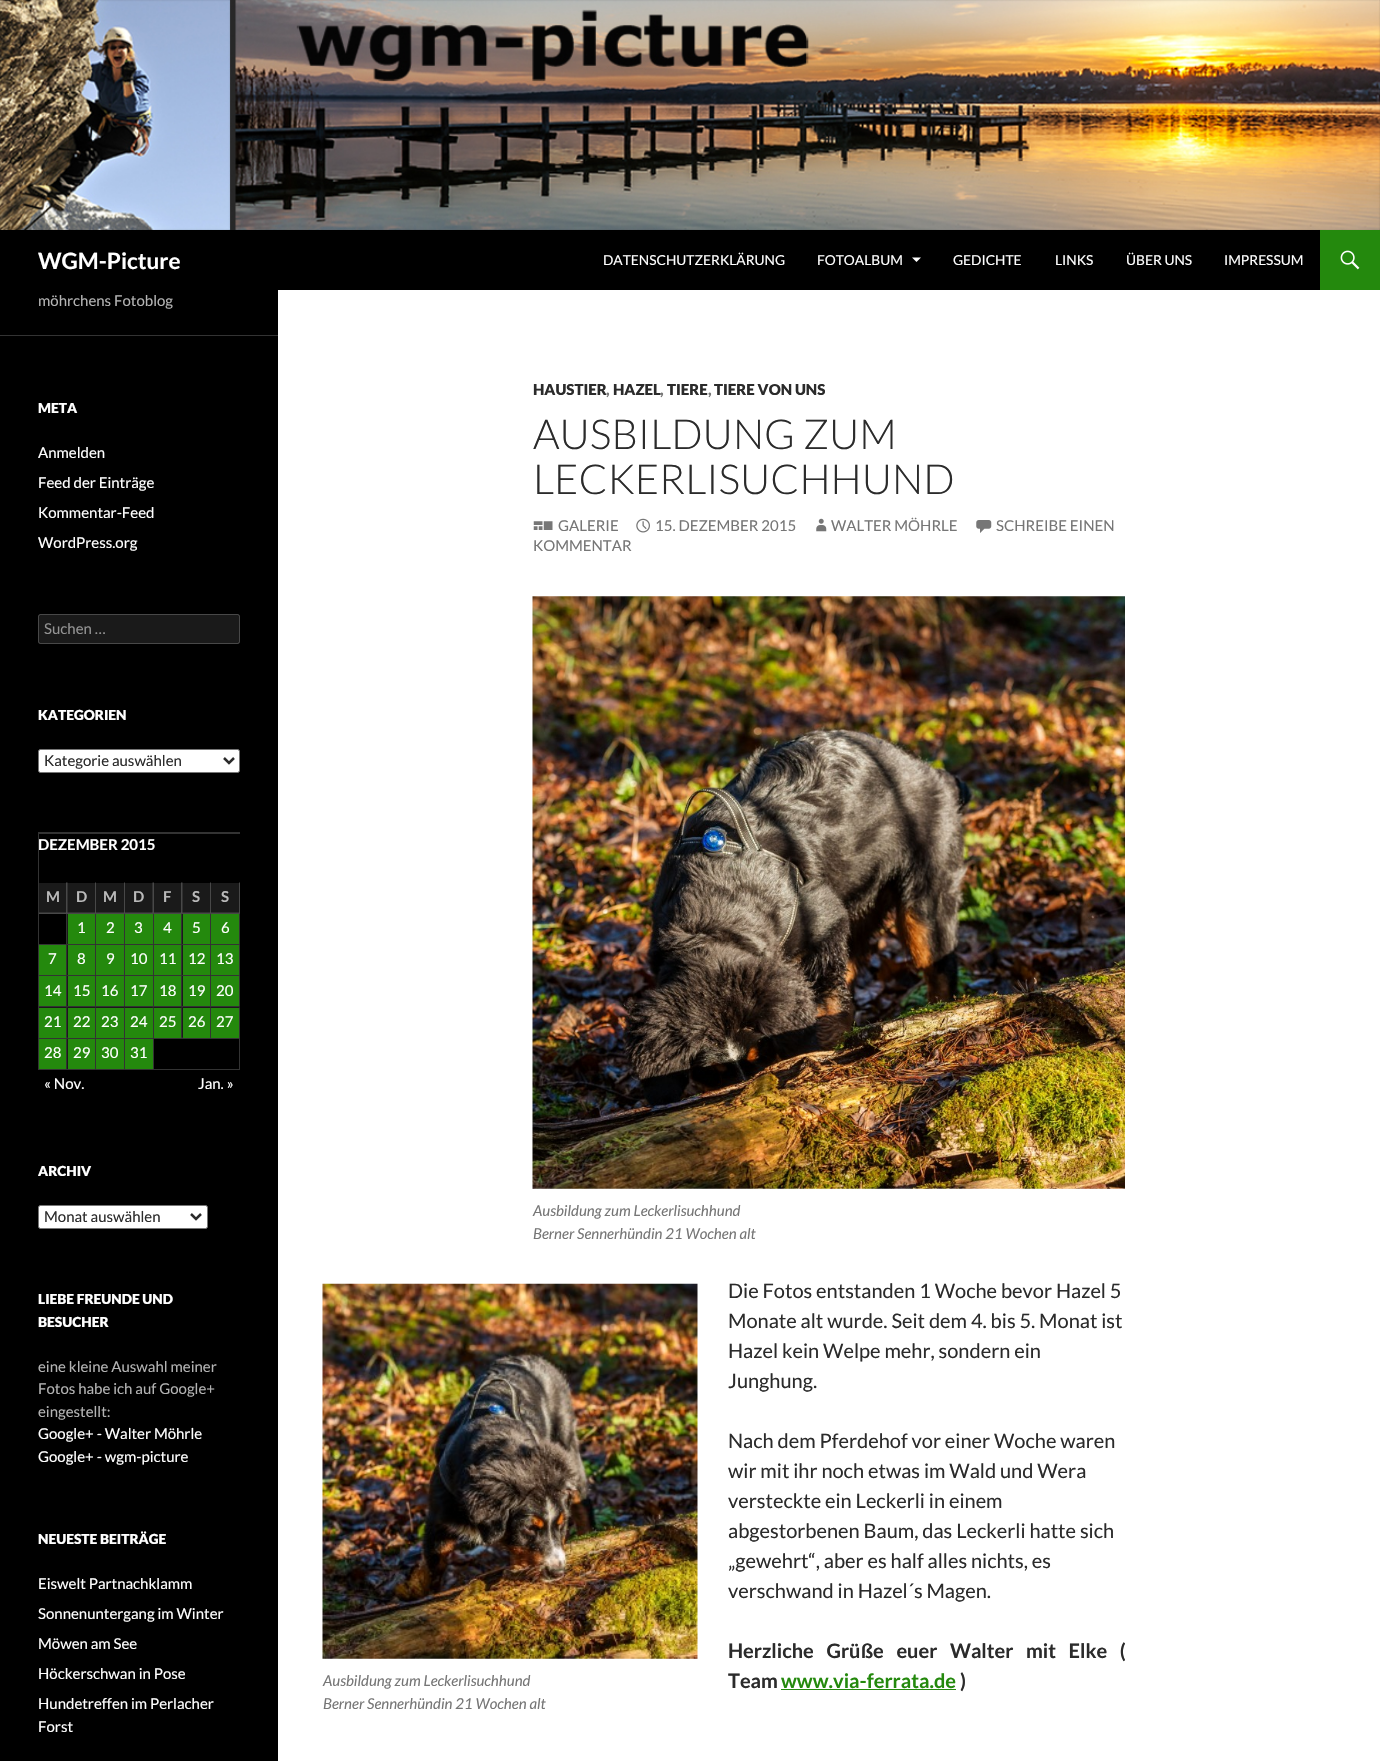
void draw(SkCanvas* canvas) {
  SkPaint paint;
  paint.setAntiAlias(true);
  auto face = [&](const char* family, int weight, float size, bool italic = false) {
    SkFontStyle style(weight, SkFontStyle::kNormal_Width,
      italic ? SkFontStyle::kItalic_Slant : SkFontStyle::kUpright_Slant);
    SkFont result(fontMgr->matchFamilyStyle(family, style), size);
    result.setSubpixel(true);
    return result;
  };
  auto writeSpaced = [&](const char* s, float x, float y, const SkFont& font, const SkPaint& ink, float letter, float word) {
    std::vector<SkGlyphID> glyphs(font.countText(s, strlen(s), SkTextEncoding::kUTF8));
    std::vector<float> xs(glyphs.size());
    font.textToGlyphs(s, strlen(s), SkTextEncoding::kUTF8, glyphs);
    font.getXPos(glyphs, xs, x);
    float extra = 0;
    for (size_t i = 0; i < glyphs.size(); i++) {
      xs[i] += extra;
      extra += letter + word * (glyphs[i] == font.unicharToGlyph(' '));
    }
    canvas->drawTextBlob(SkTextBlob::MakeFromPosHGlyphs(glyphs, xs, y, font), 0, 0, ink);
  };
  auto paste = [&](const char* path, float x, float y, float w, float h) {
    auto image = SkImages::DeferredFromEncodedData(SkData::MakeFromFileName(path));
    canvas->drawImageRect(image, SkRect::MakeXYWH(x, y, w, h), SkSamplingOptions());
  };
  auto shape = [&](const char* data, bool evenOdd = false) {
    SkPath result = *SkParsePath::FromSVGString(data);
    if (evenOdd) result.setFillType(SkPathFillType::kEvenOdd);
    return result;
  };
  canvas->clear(0xffffffff);
  paste("img/1.png", 0, 0, 1380, 230);
  paint.setColor(0xff000000);
  canvas->drawRect(SkRect::MakeXYWH(0, 230, 1320, 60), paint);
  paint.setColor(0xffffffff);
  canvas->drawPath(shape("M912 257.5L916.5 262L921 257.5Z"), paint);
  paint.setColor(0xff24890d);
  canvas->drawRect(SkRect::MakeXYWH(1320, 230, 60, 60), paint);
  paste("img/2.png", 1340, 250, 20, 20);
  paint.setColor(0xff000000);
  canvas->drawRect(SkRect::MakeXYWH(0, 290, 278, 1471), paint);
  paint.setColor(0xff333333);
  canvas->drawRect(SkRect::MakeXYWH(0, 335, 278, 1), paint);
  paint.setColor(0xff1a1a1a);
  canvas->drawRoundRect(SkRect::MakeXYWH(38, 614, 202, 30), 2.5f, 2.5f, paint);
  paint.setStroke(true);
  paint.setStrokeWidth(1);
  paint.setColor(0x33ffffff);
  canvas->drawRoundRect(SkRect::MakeXYWH(38.5f, 614.5f, 201, 29), 2, 2, paint);
  paint.setStroke(false);
  paint.setColor(0xffffffff);
  canvas->drawRoundRect(SkRect::MakeXYWH(38.5f, 749.5f, 201, 23), 2, 2, paint);
  paint.setStroke(true);
  paint.setColor(0xff767676);
  canvas->drawRoundRect(SkRect::MakeXYWH(38.5f, 749.5f, 201, 23), 2, 2, paint);
  paint.setStrokeWidth(2.5f);
  paint.setColor(0xff2b2b2b);
  canvas->drawPath(shape("M224 758L229 763L234 758"), paint);
  paint.setStroke(false);
  paint.setColor(0xff333333);
  canvas->drawPath(shape("M38 832H240V834H39Z"), paint);
  paint.setColor(0x33ffffff);
  canvas->drawPath(shape("M38 1070V832L39 834V1070Z"), paint);
  paint.setColor(0xff1a1a1a);
  canvas->drawRect(SkRect::MakeXYWH(39, 883, 201, 31), paint);
  paint.setColor(0xff484848);
  canvas->drawPath(shape("M67.5 882.5V914L66 912.5V882.5Z"), paint);
  paint.setColor(0x33ffffff);
  canvas->drawPath(shape("M67.5 914H39V912.5H66Z"), paint);
  paint.setColor(0xff484848);
  canvas->drawPath(shape("M96 882.5V914L95 912.5V882.5Z"), paint);
  paint.setColor(0x33ffffff);
  canvas->drawPath(shape("M96 914H67.5V912.5H95Z"), paint);
  paint.setColor(0xff484848);
  canvas->drawPath(shape("M125 882.5V914L124 912.5V882.5Z"), paint);
  paint.setColor(0x33ffffff);
  canvas->drawPath(shape("M125 914H96V912.5H124Z"), paint);
  paint.setColor(0xff484848);
  canvas->drawPath(shape("M154 882.5V914L152.5 912.5V882.5Z"), paint);
  paint.setColor(0x33ffffff);
  canvas->drawPath(shape("M154 914H125V912.5H152.5Z"), paint);
  paint.setColor(0xff484848);
  canvas->drawPath(shape("M182.5 882.5V914L181 912.5V882.5Z"), paint);
  paint.setColor(0x33ffffff);
  canvas->drawPath(shape("M182.5 914H154V912.5H181Z"), paint);
  paint.setColor(0xff484848);
  canvas->drawPath(shape("M211 882.5V914L210 912.5V882.5Z"), paint);
  paint.setColor(0x33ffffff);
  canvas->drawPath(shape("M211 914H182.5V912.5H210Z"), paint);
  paint.setColor(0xff484848);
  canvas->drawPath(shape("M240 882.5V914L239 912.5V882.5Z"), paint);
  paint.setColor(0x33ffffff);
  canvas->drawPath(shape("M240 914H211V912.5H239Z"), paint);
  paint.setColor(0xff333333);
  canvas->drawPath(shape("M67.5 914V945L66 944V914Z"), paint);
  paint.setColor(0x33ffffff);
  canvas->drawPath(shape("M67.5 945H39V944H66Z"), paint);
  paint.setColor(0xff333333);
  canvas->drawPath(shape("M96 914V945L95 944V914Z"), paint);
  paint.setColor(0x33ffffff);
  canvas->drawPath(shape("M96 945H67.5V944H95Z"), paint);
  paint.setColor(0xff24890d);
  canvas->drawRect(SkRect::MakeXYWH(68, 914, 27, 30), paint);
  paint.setColor(0xff333333);
  canvas->drawPath(shape("M125 914V945L124 944V914Z"), paint);
  paint.setColor(0x33ffffff);
  canvas->drawPath(shape("M125 945H96V944H124Z"), paint);
  paint.setColor(0xff24890d);
  canvas->drawRect(SkRect::MakeXYWH(96, 914, 28, 30), paint);
  paint.setColor(0xff333333);
  canvas->drawPath(shape("M154 914V945L152.5 944V914Z"), paint);
  paint.setColor(0x33ffffff);
  canvas->drawPath(shape("M154 945H125V944H152.5Z"), paint);
  paint.setColor(0xff24890d);
  canvas->drawRect(SkRect::MakeXYWH(125, 914, 28, 30), paint);
  paint.setColor(0xff333333);
  canvas->drawPath(shape("M182.5 914V945L181 944V914Z"), paint);
  paint.setColor(0x33ffffff);
  canvas->drawPath(shape("M182.5 945H154V944H181Z"), paint);
  paint.setColor(0xff24890d);
  canvas->drawRect(SkRect::MakeXYWH(154, 914, 27, 30), paint);
  paint.setColor(0xff333333);
  canvas->drawPath(shape("M211 914V945L210 944V914Z"), paint);
  paint.setColor(0x33ffffff);
  canvas->drawPath(shape("M211 945H182.5V944H210Z"), paint);
  paint.setColor(0xff24890d);
  canvas->drawRect(SkRect::MakeXYWH(183, 914, 27, 30), paint);
  paint.setColor(0xff333333);
  canvas->drawPath(shape("M240 914V945L239 944V914Z"), paint);
  paint.setColor(0x33ffffff);
  canvas->drawPath(shape("M240 945H211V944H239Z"), paint);
  paint.setColor(0xff24890d);
  canvas->drawRect(SkRect::MakeXYWH(211, 914, 28, 30), paint);
  paint.setColor(0xff333333);
  canvas->drawPath(shape("M67.5 945V976L66 975V945Z"), paint);
  paint.setColor(0x33ffffff);
  canvas->drawPath(shape("M67.5 976H39V975H66Z"), paint);
  paint.setColor(0xff24890d);
  canvas->drawRect(SkRect::MakeXYWH(39, 945, 27, 30), paint);
  paint.setColor(0xff333333);
  canvas->drawPath(shape("M96 945V976L95 975V945Z"), paint);
  paint.setColor(0x33ffffff);
  canvas->drawPath(shape("M96 976H67.5V975H95Z"), paint);
  paint.setColor(0xff24890d);
  canvas->drawRect(SkRect::MakeXYWH(68, 945, 27, 30), paint);
  paint.setColor(0xff333333);
  canvas->drawPath(shape("M125 945V976L124 975V945Z"), paint);
  paint.setColor(0x33ffffff);
  canvas->drawPath(shape("M125 976H96V975H124Z"), paint);
  paint.setColor(0xff24890d);
  canvas->drawRect(SkRect::MakeXYWH(96, 945, 28, 30), paint);
  paint.setColor(0xff333333);
  canvas->drawPath(shape("M154 945V976L152.5 975V945Z"), paint);
  paint.setColor(0x33ffffff);
  canvas->drawPath(shape("M154 976H125V975H152.5Z"), paint);
  paint.setColor(0xff24890d);
  canvas->drawRect(SkRect::MakeXYWH(125, 945, 28, 30), paint);
  paint.setColor(0xff333333);
  canvas->drawPath(shape("M182.5 945V976L181 975V945Z"), paint);
  paint.setColor(0x33ffffff);
  canvas->drawPath(shape("M182.5 976H154V975H181Z"), paint);
  paint.setColor(0xff24890d);
  canvas->drawRect(SkRect::MakeXYWH(154, 945, 27, 30), paint);
  paint.setColor(0xff333333);
  canvas->drawPath(shape("M211 945V976L210 975V945Z"), paint);
  paint.setColor(0x33ffffff);
  canvas->drawPath(shape("M211 976H182.5V975H210Z"), paint);
  paint.setColor(0xff24890d);
  canvas->drawRect(SkRect::MakeXYWH(183, 945, 27, 30), paint);
  paint.setColor(0xff333333);
  canvas->drawPath(shape("M240 945V976L239 975V945Z"), paint);
  paint.setColor(0x33ffffff);
  canvas->drawPath(shape("M240 976H211V975H239Z"), paint);
  paint.setColor(0xff24890d);
  canvas->drawRect(SkRect::MakeXYWH(211, 945, 28, 30), paint);
  paint.setColor(0xff333333);
  canvas->drawPath(shape("M67.5 976V1007.5L66 1006V976Z"), paint);
  paint.setColor(0x33ffffff);
  canvas->drawPath(shape("M67.5 1007.5H39V1006H66Z"), paint);
  paint.setColor(0xff24890d);
  canvas->drawRect(SkRect::MakeXYWH(39, 976, 27, 30), paint);
  paint.setColor(0xff333333);
  canvas->drawPath(shape("M96 976V1007.5L95 1006V976Z"), paint);
  paint.setColor(0x33ffffff);
  canvas->drawPath(shape("M96 1007.5H67.5V1006H95Z"), paint);
  paint.setColor(0xff24890d);
  canvas->drawRect(SkRect::MakeXYWH(68, 976, 27, 30), paint);
  paint.setColor(0xff333333);
  canvas->drawPath(shape("M125 976V1007.5L124 1006V976Z"), paint);
  canvas->drawPath(shape("M125 1007.5H96V1006H124Z"), paint);
  paint.setColor(0xff24890d);
  canvas->drawRect(SkRect::MakeXYWH(96, 976, 28, 30), paint);
  paint.setColor(0xff333333);
  canvas->drawPath(shape("M154 976V1007.5L152.5 1006V976Z"), paint);
  paint.setColor(0x33ffffff);
  canvas->drawPath(shape("M154 1007.5H125V1006H152.5Z"), paint);
  paint.setColor(0xff24890d);
  canvas->drawRect(SkRect::MakeXYWH(125, 976, 28, 30), paint);
  paint.setColor(0xff333333);
  canvas->drawPath(shape("M182.5 976V1007.5L181 1006V976Z"), paint);
  paint.setColor(0x33ffffff);
  canvas->drawPath(shape("M182.5 1007.5H154V1006H181Z"), paint);
  paint.setColor(0xff24890d);
  canvas->drawRect(SkRect::MakeXYWH(154, 976, 27, 30), paint);
  paint.setColor(0xff333333);
  canvas->drawPath(shape("M211 976V1007.5L210 1006V976Z"), paint);
  paint.setColor(0x33ffffff);
  canvas->drawPath(shape("M211 1007.5H182.5V1006H210Z"), paint);
  paint.setColor(0xff24890d);
  canvas->drawRect(SkRect::MakeXYWH(183, 976, 27, 30), paint);
  paint.setColor(0xff333333);
  canvas->drawPath(shape("M240 976V1007.5L239 1006V976Z"), paint);
  canvas->drawPath(shape("M240 1007.5H211V1006H239Z"), paint);
  paint.setColor(0xff24890d);
  canvas->drawRect(SkRect::MakeXYWH(211, 976, 28, 30), paint);
  paint.setColor(0xff333333);
  canvas->drawPath(shape("M67.5 1007.5V1039L66 1037.5V1007.5Z"), paint);
  paint.setColor(0x33ffffff);
  canvas->drawPath(shape("M67.5 1039H39V1037.5H66Z"), paint);
  paint.setColor(0xff24890d);
  canvas->drawRect(SkRect::MakeXYWH(39, 1008, 27, 30), paint);
  paint.setColor(0xff333333);
  canvas->drawPath(shape("M96 1007.5V1039L95 1037.5V1007.5Z"), paint);
  paint.setColor(0x33ffffff);
  canvas->drawPath(shape("M96 1039H67.5V1037.5H95Z"), paint);
  paint.setColor(0xff24890d);
  canvas->drawRect(SkRect::MakeXYWH(68, 1008, 27, 30), paint);
  paint.setColor(0xff333333);
  canvas->drawPath(shape("M125 1007.5V1039L124 1037.5V1007.5Z"), paint);
  paint.setColor(0x33ffffff);
  canvas->drawPath(shape("M125 1039H96V1037.5H124Z"), paint);
  paint.setColor(0xff24890d);
  canvas->drawRect(SkRect::MakeXYWH(96, 1008, 28, 30), paint);
  paint.setColor(0xff333333);
  canvas->drawPath(shape("M154 1007.5V1039L152.5 1037.5V1007.5Z"), paint);
  paint.setColor(0x33ffffff);
  canvas->drawPath(shape("M154 1039H125V1037.5H152.5Z"), paint);
  paint.setColor(0xff24890d);
  canvas->drawRect(SkRect::MakeXYWH(125, 1008, 28, 30), paint);
  paint.setColor(0xff333333);
  canvas->drawPath(shape("M182.5 1007.5V1039L181 1037.5V1007.5Z"), paint);
  paint.setColor(0x33ffffff);
  canvas->drawPath(shape("M182.5 1039H154V1037.5H181Z"), paint);
  paint.setColor(0xff24890d);
  canvas->drawRect(SkRect::MakeXYWH(154, 1008, 27, 30), paint);
  paint.setColor(0xff333333);
  canvas->drawPath(shape("M211 1007.5V1039L210 1037.5V1007.5Z"), paint);
  paint.setColor(0x33ffffff);
  canvas->drawPath(shape("M211 1039H182.5V1037.5H210Z"), paint);
  paint.setColor(0xff24890d);
  canvas->drawRect(SkRect::MakeXYWH(183, 1008, 27, 30), paint);
  paint.setColor(0xff333333);
  canvas->drawPath(shape("M240 1007.5V1039L239 1037.5V1007.5Z"), paint);
  paint.setColor(0x33ffffff);
  canvas->drawPath(shape("M240 1039H211V1037.5H239Z"), paint);
  paint.setColor(0xff24890d);
  canvas->drawRect(SkRect::MakeXYWH(211, 1008, 28, 30), paint);
  paint.setColor(0xff333333);
  canvas->drawPath(shape("M67.5 1039V1070L66 1069V1039Z"), paint);
  paint.setColor(0x33ffffff);
  canvas->drawPath(shape("M67.5 1070H39V1069H66Z"), paint);
  paint.setColor(0xff24890d);
  canvas->drawRect(SkRect::MakeXYWH(39, 1039, 27, 30), paint);
  paint.setColor(0xff333333);
  canvas->drawPath(shape("M96 1039V1070L95 1069V1039Z"), paint);
  paint.setColor(0x33ffffff);
  canvas->drawPath(shape("M96 1070H67.5V1069H95Z"), paint);
  paint.setColor(0xff24890d);
  canvas->drawRect(SkRect::MakeXYWH(68, 1039, 27, 30), paint);
  paint.setColor(0xff333333);
  canvas->drawPath(shape("M125 1039V1070L124 1069V1039Z"), paint);
  paint.setColor(0x33ffffff);
  canvas->drawPath(shape("M125 1070H96V1069H124Z"), paint);
  paint.setColor(0xff24890d);
  canvas->drawRect(SkRect::MakeXYWH(96, 1039, 28, 30), paint);
  paint.setColor(0xff333333);
  canvas->drawPath(shape("M154 1039V1070L152.5 1069V1039Z"), paint);
  paint.setColor(0x33ffffff);
  canvas->drawPath(shape("M154 1070H125V1069H152.5Z"), paint);
  paint.setColor(0xff24890d);
  canvas->drawRect(SkRect::MakeXYWH(125, 1039, 28, 30), paint);
  paint.setColor(0xff333333);
  canvas->drawPath(shape("M240 1039V1070L239 1069V1039Z"), paint);
  paint.setColor(0x33ffffff);
  canvas->drawPath(shape("M240 1070H154V1069H239Z"), paint);
  paint.setColor(0xffffffff);
  canvas->drawRoundRect(SkRect::MakeXYWH(38.5f, 1205.5f, 169, 23), 2, 2, paint);
  paint.setStroke(true);
  paint.setStrokeWidth(1);
  paint.setColor(0xff767676);
  canvas->drawRoundRect(SkRect::MakeXYWH(38.5f, 1205.5f, 169, 23), 2, 2, paint);
  paint.setStrokeWidth(2.5f);
  paint.setColor(0xff2b2b2b);
  canvas->drawPath(shape("M191 1214L196 1219L201 1214"), paint);
  paste("img/3.png", 816, 518, 11, 14);
  paste("img/4.png", 976, 520, 16, 13);
  paste("img/5.png", 533, 521, 20, 9);
  paste("img/6.png", 636, 518, 14, 15);
  paste("img/7.png", 532, 596, 593, 593);
  paste("img/8.png", 322, 1283, 376, 376);
  paint.setStroke(false);
  paint.setColor(0xff24890d);
  canvas->drawRect(SkRect::MakeXYWH(781, 1689, 175, 1), paint);
  auto f0 = face("Lato", 700, 22.5f);
  paint.setColor(0xffffffff);
  canvas->drawString("WGM-Picture", 38, 269, f0, paint);
  auto f1 = face("Lato", 400, 13.75f);
  {
    const struct { const char* s; float x, y; } items[] = {
      {"DATENSCHUTZERKLÄRUNG", 603, 265},
      {"FOTOALBUM", 817, 265},
      {"GEDICHTE", 953, 265},
      {"LINKS", 1055, 265},
      {"ÜBER UNS", 1126, 265},
      {"IMPRESSUM", 1224, 265},
    };
    for (auto [s, x, y] : items) {
      canvas->drawString(s, x, y, f1, paint);
    }
  }
  auto f2 = face("Lato", 400, 15);
  paint.setColor(0xffb3b3b3);
  canvas->drawString("möhrchens Fotoblog", 38, 306, f2, paint);
  auto f3 = face("Lato", 900, 13.75f);
  paint.setColor(0xffffffff);
  canvas->drawString("META", 38, 413, f3, paint);
  {
    const struct { const char* s; float x, y; } items[] = {
      {"Anmelden", 38, 458},
      {"Feed der Einträge", 38, 488},
      {"Kommentar-Feed", 38, 518},
      {"WordPress.org", 38, 548},
    };
    for (auto [s, x, y] : items) {
      canvas->drawString(s, x, y, f2, paint);
    }
  }
  paint.setColor(0xff939393);
  canvas->drawString("Suchen …", 44, 634, f2, paint);
  paint.setColor(0xffffffff);
  canvas->drawString("KATEGORIEN", 38, 720, f3, paint);
  paint.setColor(0xff2b2b2b);
  canvas->drawString("Kategorie auswählen", 44, 766, f2, paint);
  auto f4 = face("Lato", 700, 15);
  paint.setColor(0xffffffff);
  canvas->drawString("DEZEMBER 2015", 38, 850, f4, paint);
  paint.setColor(0xffbababa);
  {
    const struct { const char* s; float x, y; } items[] = {
      {"M", 46, 902},
      {"D", 76, 902},
      {"M", 103, 902},
      {"D", 133, 902},
      {"F", 163, 902},
      {"S", 192, 902},
      {"S", 221, 902},
    };
    for (auto [s, x, y] : items) {
      canvas->drawString(s, x, y, f4, paint);
    }
  }
  paint.setColor(0xffffffff);
  {
    const struct { const char* s; float x, y; } items[] = {
      {"1", 77, 933},
      {"2", 106, 933},
      {"3", 134, 933},
      {"4", 163, 933},
      {"5", 192, 933},
      {"6", 221, 933},
      {"7", 48, 964},
      {"8", 77, 964},
      {"9", 106, 964},
      {"10", 130, 964},
      {"11", 159, 964},
      {"12", 188, 964},
      {"13", 216, 964},
      {"14", 44, 996},
      {"15", 73, 996},
      {"16", 101, 996},
      {"17", 130, 996},
      {"18", 159, 996},
      {"19", 188, 996},
      {"20", 216, 996},
      {"21", 44, 1027},
      {"22", 73, 1027},
      {"23", 101, 1027},
      {"24", 130, 1027},
      {"25", 159, 1027},
      {"26", 188, 1027},
      {"27", 216, 1027},
      {"28", 44, 1058},
      {"29", 73, 1058},
      {"30", 101, 1058},
      {"31", 130, 1058},
      {"« Nov.", 44, 1089},
      {"Jan. »", 198, 1089},
    };
    for (auto [s, x, y] : items) {
      canvas->drawString(s, x, y, f2, paint);
    }
  }
  canvas->drawString("ARCHIV", 38, 1176, f3, paint);
  paint.setColor(0xff2b2b2b);
  canvas->drawString("Monat auswählen", 44, 1222, f2, paint);
  paint.setColor(0xffffffff);
  canvas->drawString("LIEBE FREUNDE UND", 38, 1304, f3, paint);
  canvas->drawString("BESUCHER", 38, 1327, f3, paint);
  paint.setColor(0xffb3b3b3);
  {
    const struct { const char* s; float x, y; } items[] = {
      {"eine kleine Auswahl meiner", 38, 1372},
      {"Fotos habe ich auf Google+", 38, 1394},
      {"eingestellt:", 38, 1417},
    };
    for (auto [s, x, y] : items) {
      canvas->drawString(s, x, y, f2, paint);
    }
  }
  paint.setColor(0xffffffff);
  canvas->drawString("Google+ - Walter Möhrle", 38, 1439, f2, paint);
  canvas->drawString("Google+ - wgm-picture", 38, 1462, f2, paint);
  canvas->drawString("NEUESTE BEITRÄGE", 38, 1544, f3, paint);
  {
    const struct { const char* s; float x, y; } items[] = {
      {"Eiswelt Partnachklamm", 38, 1589},
      {"Sonnenuntergang im Winter", 38, 1619},
      {"Möwen am See", 38, 1649},
      {"Höckerschwan in Pose", 38, 1679},
      {"Hundetreffen im Perlacher", 38, 1709},
      {"Forst", 38, 1732},
    };
    for (auto [s, x, y] : items) {
      canvas->drawString(s, x, y, f2, paint);
    }
  }
  auto f5 = face("Lato", 900, 15);
  paint.setColor(0xff2b2b2b);
  canvas->drawString("HAUSTIER", 533, 395, f5, paint);
  paint.setColor(0xff767676);
  canvas->drawString(",", 606, 395, f5, paint);
  paint.setColor(0xff2b2b2b);
  canvas->drawString("HAZEL", 613, 395, f5, paint);
  paint.setColor(0xff767676);
  canvas->drawString(",", 660, 395, f5, paint);
  paint.setColor(0xff2b2b2b);
  canvas->drawString("TIERE", 667, 395, f5, paint);
  paint.setColor(0xff767676);
  canvas->drawString(",", 708, 395, f5, paint);
  paint.setColor(0xff2b2b2b);
  canvas->drawString("TIERE VON UNS", 714, 395, f5, paint);
  auto f6 = face("Lato", 300, 41.25f);
  canvas->drawString("AUSBILDUNG ZUM", 533, 449, f6, paint);
  canvas->drawString("LECKERLISUCHHUND", 533, 494, f6, paint);
  paint.setColor(0xff767676);
  {
    const struct { const char* s; float x, y; } items[] = {
      {"WALTER MÖHRLE", 831, 531},
      {"SCHREIBE EINEN", 996, 531},
      {"KOMMENTAR", 533, 551},
      {"GALERIE", 558, 531},
      {"15. DEZEMBER 2015", 655, 531},
    };
    for (auto [s, x, y] : items) {
      canvas->drawString(s, x, y, f2, paint);
    }
  }
  auto f7 = face("Lato", 400, 15, true);
  canvas->drawString("Ausbildung zum Leckerlisuchhund", 533, 1216, f7, paint);
  canvas->drawString("Berner Sennerhündin 21 Wochen alt", 533, 1239, f7, paint);
  auto f8 = face("Lato", 400, 20);
  paint.setColor(0xff2b2b2b);
  {
    const struct { const char* s; float x, y; } items[] = {
      {"Die Fotos entstanden 1 Woche bevor Hazel 5", 728, 1298},
      {"Monate alt wurde. Seit dem 4. bis 5. Monat ist", 728, 1328},
      {"Hazel kein Welpe mehr, sondern ein", 728, 1358},
      {"Junghung.", 728, 1388},
      {"Nach dem Pferdehof vor einer Woche waren", 728, 1448},
      {"wir mit ihr noch etwas im Wald und Wera", 728, 1478},
      {"versteckte ein Leckerli in einem", 728, 1508},
      {"abgestorbenen Baum, das Leckerli hatte sich", 728, 1538},
      {"„gewehrt“, aber es half alles nichts, es", 728, 1568},
      {"verschwand in Hazel´s Magen.", 728, 1598},
    };
    for (auto [s, x, y] : items) {
      canvas->drawString(s, x, y, f8, paint);
    }
  }
  paint.setColor(0xff767676);
  canvas->drawString("Ausbildung zum Leckerlisuchhund", 323, 1686, f7, paint);
  canvas->drawString("Berner Sennerhündin 21 Wochen alt", 323, 1709, f7, paint);
  auto f9 = face("Lato", 700, 20);
  paint.setColor(0xff2b2b2b);
  writeSpaced("Herzliche Grüße euer Walter mit Elke (", 728, 1658, f9, paint, 0, 8.75f);
  canvas->drawString("Team", 728, 1688, f9, paint);
  paint.setColor(0xff24890d);
  canvas->drawString("www.via-ferrata.de", 781, 1688, f9, paint);
  paint.setColor(0xff2b2b2b);
  canvas->drawString(")", 960, 1688, f9, paint);
}
